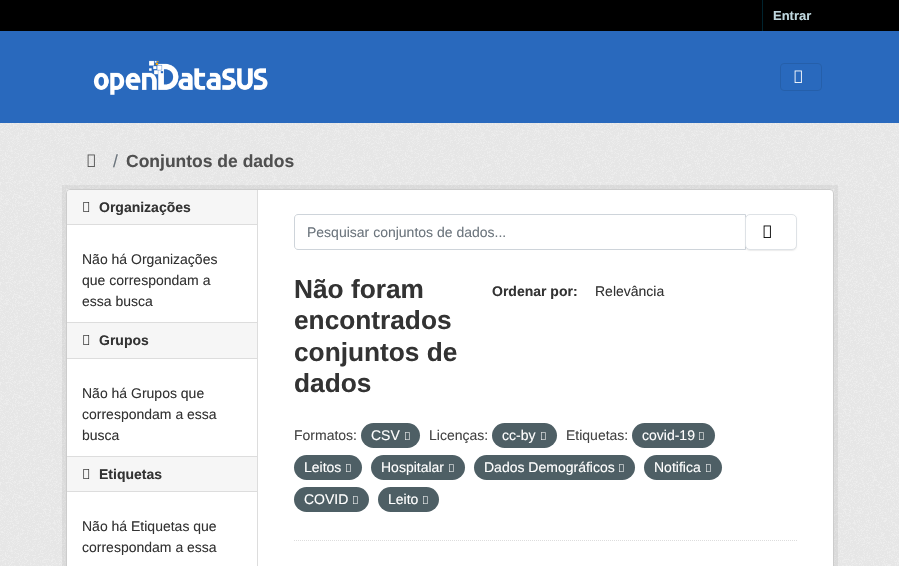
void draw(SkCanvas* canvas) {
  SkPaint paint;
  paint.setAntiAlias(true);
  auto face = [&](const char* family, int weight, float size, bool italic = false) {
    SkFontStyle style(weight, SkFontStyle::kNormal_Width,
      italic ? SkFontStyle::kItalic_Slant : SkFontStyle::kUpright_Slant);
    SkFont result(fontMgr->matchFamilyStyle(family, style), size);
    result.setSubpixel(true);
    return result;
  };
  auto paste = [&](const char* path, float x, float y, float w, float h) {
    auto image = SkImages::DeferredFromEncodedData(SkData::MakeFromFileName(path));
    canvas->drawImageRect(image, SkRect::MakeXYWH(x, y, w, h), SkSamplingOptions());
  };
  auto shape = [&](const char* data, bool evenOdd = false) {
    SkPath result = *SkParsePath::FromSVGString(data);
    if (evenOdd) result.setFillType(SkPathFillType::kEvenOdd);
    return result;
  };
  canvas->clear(0xff000000);
  paint.setColor(0xff00232e);
  canvas->drawRect(SkRect::MakeXYWH(762, 0, 1, 31), paint);
  paint.setColor(0xff2969bd);
  canvas->drawRect(SkRect::MakeXYWH(0, 31, 899, 92), paint);
  paste("img/1.png", 93, 60, 175, 35);
  paint.setStroke(true);
  paint.setStrokeWidth(1);
  paint.setColor(0xff255faa);
  canvas->drawRoundRect(SkRect::MakeXYWH(780.5f, 63.5f, 41, 27), 3.5f, 3.5f, paint);
  paste("img/2.png", 794, 70, 8, 13);
  paint.setStroke(false);
  paint.setColor(0xffeeeeee);
  canvas->drawRect(SkRect::MakeXYWH(0, 123, 899, 443), paint);
  paste("img/3.png", 0, 123, 899, 443);
  paste("img/4.png", 87, 154, 8, 13);
  paint.setStroke(true);
  paint.setStrokeWidth(4);
  paint.setColor(0x0d000000);
  canvas->drawRect(SkRect::MakeXYWH(64, 187, 772, 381), paint);
  paint.setStroke(false);
  paint.setColor(0xffffffff);
  canvas->drawRoundRect(SkRect::MakeXYWH(66.5f, 189.5f, 767, 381), 3.5f, 3.5f, paint);
  paint.setStroke(true);
  paint.setStrokeWidth(1);
  paint.setColor(0xffcccccc);
  canvas->drawRoundRect(SkRect::MakeXYWH(66.5f, 189.5f, 767, 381), 3.5f, 3.5f, paint);
  paint.setStroke(false);
  paint.setColor(0xfff6f6f6);
  canvas->drawPath(shape("M70 190H257V225H67V193C67 191.5 68.5 190 70 190Z"), paint);
  paint.setColor(0xffdddddd);
  canvas->drawRect(SkRect::MakeXYWH(67, 224, 190, 1), paint);
  paste("img/5.png", 83, 202, 7, 10);
  {
    const struct { float x, y, w, h; SkColor color; } items[] = {
      {67, 323, 190, 35, 0xfff6f6f6},
      {67, 322, 190, 1, 0xffdddddd},
      {67, 358, 190, 1, 0xffdddddd},
    };
    for (auto [x, y, w, h, color] : items) {
      paint.setColor(color);
      canvas->drawRect(SkRect::MakeXYWH(x, y, w, h), paint);
    }
  }
  paste("img/5.png", 83, 335, 7, 10);
  {
    const struct { float x, y, w, h; SkColor color; } items[] = {
      {67, 457, 190, 34, 0xfff6f6f6},
      {67, 456, 190, 1, 0xffdddddd},
      {67, 491, 190, 1, 0xffdddddd},
    };
    for (auto [x, y, w, h, color] : items) {
      paint.setColor(color);
      canvas->drawRect(SkRect::MakeXYWH(x, y, w, h), paint);
    }
  }
  paste("img/5.png", 83, 469, 7, 10);
  canvas->drawRect(SkRect::MakeXYWH(257, 190, 1, 376), paint);
  paint.setStroke(true);
  paint.setPathEffect(SkDashPathEffect::Make({{1, 1}}, 0));
  canvas->drawPath(shape("M294 540.5H797"), paint);
  paint.setPathEffect(nullptr);
  paint.setColor(0xffced4da);
  canvas->drawPath(shape("M298 214.5H745.5V249.5H298C296 249.5 294.5 248 294.5 246V218C294.5 216 296 214.5 298 214.5Z"), paint);
  paint.setStroke(false);
  paint.setColor(0x12000000);
  paint.setMaskFilter(SkMaskFilter::MakeBlur(kNormal_SkBlurStyle, 0.5f));
  canvas->drawRoundRect(SkRect::MakeXYWH(745, 215, 52, 36), 5, 5, paint);
  paint.setMaskFilter(nullptr);
  paint.setColor(0xffffffff);
  canvas->drawRoundRect(SkRect::MakeXYWH(745.5f, 214.5f, 51, 35), 4.5f, 4.5f, paint);
  paint.setStroke(true);
  paint.setColor(0xffdee2e6);
  canvas->drawRoundRect(SkRect::MakeXYWH(745.5f, 214.5f, 51, 35), 4.5f, 4.5f, paint);
  paste("img/6.png", 763, 225, 8, 13);
  paint.setStroke(false);
  paint.setColor(0xff4e5f65);
  canvas->drawRoundRect(SkRect::MakeXYWH(361, 423, 59, 25), 12.5f, 12.5f, paint);
  paste("img/7.png", 405, 432, 5, 8);
  canvas->drawRoundRect(SkRect::MakeXYWH(492, 423, 65, 25), 12.5f, 12.5f, paint);
  paste("img/7.png", 541, 432, 5, 8);
  canvas->drawRoundRect(SkRect::MakeXYWH(632, 423, 83, 25), 12.5f, 12.5f, paint);
  paste("img/7.png", 699, 432, 5, 8);
  canvas->drawRoundRect(SkRect::MakeXYWH(294, 455, 68, 25), 12.5f, 12.5f, paint);
  paste("img/7.png", 346, 464, 5, 8);
  canvas->drawRoundRect(SkRect::MakeXYWH(371, 455, 94, 25), 12.5f, 12.5f, paint);
  paste("img/7.png", 449, 464, 5, 8);
  canvas->drawRoundRect(SkRect::MakeXYWH(474, 455, 161, 25), 12.5f, 12.5f, paint);
  paste("img/7.png", 619, 464, 5, 8);
  canvas->drawRoundRect(SkRect::MakeXYWH(644, 455, 78, 25), 12.5f, 12.5f, paint);
  paste("img/7.png", 706, 464, 5, 8);
  canvas->drawRoundRect(SkRect::MakeXYWH(294, 487, 75, 25), 12.5f, 12.5f, paint);
  paste("img/7.png", 353, 496, 5, 8);
  canvas->drawRoundRect(SkRect::MakeXYWH(378, 487, 61, 25), 12.5f, 12.5f, paint);
  paste("img/7.png", 423, 496, 5, 8);
  auto f0 = face("Liberation Sans", 700, 13);
  paint.setColor(0xffbfd7de);
  canvas->drawString("Entrar", 773, 20, f0, paint);
  auto f1 = face("Liberation Sans", 400, 17.5f);
  paint.setColor(0xff6c757d);
  canvas->drawString("/", 113, 167, f1, paint);
  auto f2 = face("Liberation Sans", 700, 17.5f);
  paint.setColor(0xff505050);
  canvas->drawString("Conjuntos de dados", 126, 167, f2, paint);
  auto f3 = face("Liberation Sans", 700, 14);
  paint.setColor(0xff333333);
  canvas->drawString("Organizações", 99, 212, f3, paint);
  auto f4 = face("Liberation Sans", 400, 14);
  {
    const struct { const char* s; float x, y; } items[] = {
      {"Não há Organizações", 82, 264},
      {"que correspondam a", 82, 285},
      {"essa busca", 82, 306},
    };
    for (auto [s, x, y] : items) {
      canvas->drawString(s, x, y, f4, paint);
    }
  }
  canvas->drawString("Grupos", 99, 345, f3, paint);
  {
    const struct { const char* s; float x, y; } items[] = {
      {"Não há Grupos que", 82, 398},
      {"correspondam a essa", 82, 419},
      {"busca", 82, 440},
    };
    for (auto [s, x, y] : items) {
      canvas->drawString(s, x, y, f4, paint);
    }
  }
  canvas->drawString("Etiquetas", 99, 479, f3, paint);
  canvas->drawString("Não há Etiquetas que", 82, 531, f4, paint);
  canvas->drawString("correspondam a essa", 82, 552, f4, paint);
  paint.setColor(0xff6c757d);
  canvas->drawString("Pesquisar conjuntos de dados...", 307, 237, f4, paint);
  auto f5 = face("Liberation Sans", 700, 26.25f);
  paint.setColor(0xff333333);
  {
    const struct { const char* s; float x, y; } items[] = {
      {"Não foram", 294, 298},
      {"encontrados", 294, 329},
      {"conjuntos de", 294, 361},
      {"dados", 294, 392},
    };
    for (auto [s, x, y] : items) {
      canvas->drawString(s, x, y, f5, paint);
    }
  }
  canvas->drawString("Ordenar por:", 492, 296, f3, paint);
  canvas->drawString("Relevância", 595, 296, f4, paint);
  paint.setColor(0xff444444);
  canvas->drawString("Formatos:", 294, 440, f4, paint);
  paint.setColor(0xffffffff);
  canvas->drawString("CSV", 371, 440, f4, paint);
  paint.setColor(0xff444444);
  canvas->drawString("Licenças:", 429, 440, f4, paint);
  paint.setColor(0xffffffff);
  canvas->drawString("cc-by", 502, 440, f4, paint);
  paint.setColor(0xff444444);
  canvas->drawString("Etiquetas:", 566, 440, f4, paint);
  paint.setColor(0xffffffff);
  {
    const struct { const char* s; float x, y; } items[] = {
      {"covid-19", 642, 440},
      {"Leitos", 304, 472},
      {"Hospitalar", 381, 472},
      {"Dados Demográficos", 484, 472},
      {"Notifica", 654, 472},
      {"COVID", 304, 504},
      {"Leito", 388, 504},
    };
    for (auto [s, x, y] : items) {
      canvas->drawString(s, x, y, f4, paint);
    }
  }
}
